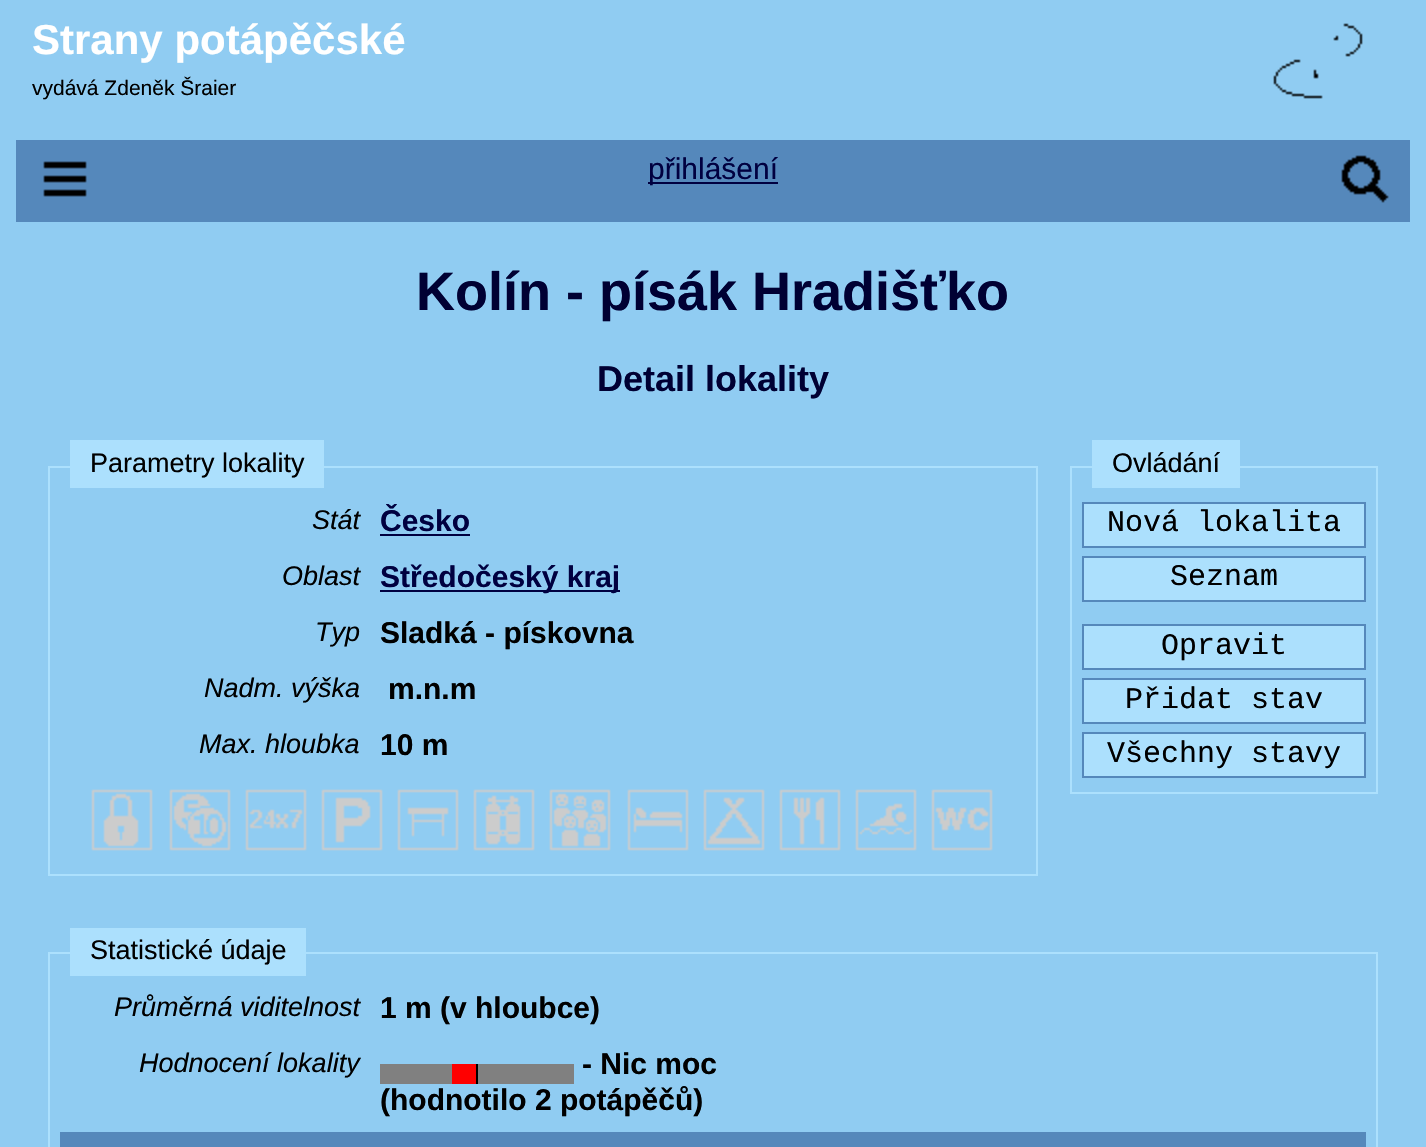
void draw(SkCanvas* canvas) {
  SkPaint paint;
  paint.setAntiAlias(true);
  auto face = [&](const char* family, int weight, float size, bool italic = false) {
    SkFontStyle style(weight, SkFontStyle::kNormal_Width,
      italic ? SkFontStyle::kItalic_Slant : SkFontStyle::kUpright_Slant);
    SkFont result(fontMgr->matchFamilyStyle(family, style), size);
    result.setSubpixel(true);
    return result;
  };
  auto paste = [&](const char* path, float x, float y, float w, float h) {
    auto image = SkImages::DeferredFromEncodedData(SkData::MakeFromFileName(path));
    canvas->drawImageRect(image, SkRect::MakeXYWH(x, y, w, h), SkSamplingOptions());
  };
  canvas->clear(0xff90ccf2);
  paste("img/1.png", 1273, 23, 90, 76);
  paint.setColor(0xff5588bb);
  canvas->drawRect(SkRect::MakeXYWH(16, 140, 1394, 82), paint);
  paste("img/2.png", 43, 161, 44, 36);
  paint.setColor(0xff000040);
  canvas->drawRect(SkRect::MakeXYWH(648, 182, 130, 2), paint);
  paste("img/3.png", 1341, 155, 48, 48);
  paint.setStroke(true);
  paint.setStrokeWidth(2);
  paint.setColor(0xfface0fd);
  canvas->drawRect(SkRect::MakeXYWH(49, 467, 988, 408), paint);
  paint.setStroke(false);
  {
    const struct { float x, y, w, h; SkColor color; } items[] = {
      {70, 440, 254, 48, 0xfface0fd},
      {380, 534, 90, 2, 0xff000040},
      {380, 590, 240, 2, 0xff000040},
    };
    for (auto [x, y, w, h, color] : items) {
      paint.setColor(color);
      canvas->drawRect(SkRect::MakeXYWH(x, y, w, h), paint);
    }
  }
  paste("img/4.png", 91, 789, 62, 62);
  paste("img/5.png", 169, 789, 62, 62);
  paste("img/6.png", 245, 789, 62, 62);
  paste("img/7.png", 321, 789, 62, 62);
  paste("img/8.png", 397, 789, 62, 62);
  paste("img/9.png", 473, 789, 62, 62);
  paste("img/10.png", 549, 789, 62, 62);
  paste("img/11.png", 627, 789, 62, 62);
  paste("img/12.png", 703, 789, 62, 62);
  paste("img/13.png", 779, 789, 62, 62);
  paste("img/14.png", 855, 789, 62, 62);
  paste("img/15.png", 931, 789, 62, 62);
  paint.setStroke(true);
  paint.setColor(0xfface0fd);
  canvas->drawRect(SkRect::MakeXYWH(1071, 467, 306, 326), paint);
  paint.setStroke(false);
  canvas->drawRect(SkRect::MakeXYWH(1092, 440, 148, 48), paint);
  canvas->drawRect(SkRect::MakeXYWH(1083, 503, 282, 44), paint);
  paint.setStroke(true);
  paint.setColor(0xff5588bb);
  canvas->drawRect(SkRect::MakeXYWH(1083, 503, 282, 44), paint);
  paint.setStroke(false);
  paint.setColor(0xfface0fd);
  canvas->drawRect(SkRect::MakeXYWH(1083, 557, 282, 44), paint);
  paint.setStroke(true);
  paint.setColor(0xff5588bb);
  canvas->drawRect(SkRect::MakeXYWH(1083, 557, 282, 44), paint);
  paint.setStroke(false);
  paint.setColor(0xfface0fd);
  canvas->drawRect(SkRect::MakeXYWH(1083, 625, 282, 44), paint);
  paint.setStroke(true);
  paint.setColor(0xff5588bb);
  canvas->drawRect(SkRect::MakeXYWH(1083, 625, 282, 44), paint);
  paint.setStroke(false);
  paint.setColor(0xfface0fd);
  canvas->drawRect(SkRect::MakeXYWH(1083, 679, 282, 44), paint);
  paint.setStroke(true);
  paint.setColor(0xff5588bb);
  canvas->drawRect(SkRect::MakeXYWH(1083, 679, 282, 44), paint);
  paint.setStroke(false);
  paint.setColor(0xfface0fd);
  canvas->drawRect(SkRect::MakeXYWH(1083, 733, 282, 44), paint);
  paint.setStroke(true);
  paint.setColor(0xff5588bb);
  canvas->drawRect(SkRect::MakeXYWH(1083, 733, 282, 44), paint);
  paint.setColor(0xfface0fd);
  canvas->drawRect(SkRect::MakeXYWH(49, 953, 1328, 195), paint);
  paint.setStroke(false);
  {
    const struct { float x, y, w, h; SkColor color; } items[] = {
      {70, 928, 236, 48, 0xfface0fd},
      {380, 1064, 72, 20, 0xff808080},
      {452, 1064, 24, 20, 0xffff0000},
      {476, 1064, 2, 20, 0xff000000},
      {478, 1064, 96, 20, 0xff808080},
      {60, 1132, 1306, 15, 0xff5588bb},
    };
    for (auto [x, y, w, h, color] : items) {
      paint.setColor(color);
      canvas->drawRect(SkRect::MakeXYWH(x, y, w, h), paint);
    }
  }
  auto f0 = face("Liberation Sans", 700, 42);
  paint.setColor(0xffffffff);
  canvas->drawString("Strany potápěčské", 32, 54, f0, paint);
  auto f1 = face("Liberation Sans", 400, 21);
  paint.setColor(0xff000000);
  canvas->drawString("vydává Zdeněk Šraier", 32, 95, f1, paint);
  auto f2 = face("Liberation Sans", 400, 30);
  paint.setColor(0xff000040);
  canvas->drawString("přihlášení", 648, 179, f2, paint);
  auto f3 = face("Liberation Sans", 700, 54);
  paint.setColor(0xff000033);
  canvas->drawString("Kolín - písák Hradišťko", 416, 310, f3, paint);
  auto f4 = face("Liberation Sans", 700, 36);
  canvas->drawString("Detail lokality", 597, 391, f4, paint);
  auto f5 = face("Liberation Sans", 400, 27);
  paint.setColor(0xff000000);
  canvas->drawString("Parametry lokality", 90, 472, f5, paint);
  auto f6 = face("Liberation Sans", 400, 27, true);
  canvas->drawString("Stát", 312, 529, f6, paint);
  auto f7 = face("Liberation Sans", 700, 30);
  paint.setColor(0xff000040);
  canvas->drawString("Česko", 380, 531, f7, paint);
  paint.setColor(0xff000000);
  canvas->drawString("Oblast", 282, 585, f6, paint);
  paint.setColor(0xff000040);
  canvas->drawString("Středočeský kraj", 380, 587, f7, paint);
  paint.setColor(0xff000000);
  canvas->drawString("Typ", 315, 641, f6, paint);
  canvas->drawString("Sladká - pískovna", 380, 643, f7, paint);
  canvas->drawString("Nadm. výška", 204, 697, f6, paint);
  canvas->drawString("m.n.m", 388, 699, f7, paint);
  canvas->drawString("Max. hloubka", 199, 753, f6, paint);
  canvas->drawString("10 m", 380, 755, f7, paint);
  canvas->drawString("Ovládání", 1112, 472, f5, paint);
  auto f8 = face("Liberation Mono", 400, 30);
  {
    const struct { const char* s; float x, y; } items[] = {
      {"Nová lokalita", 1107, 531},
      {"Seznam", 1170, 585},
      {"Opravit", 1161, 654},
      {"Přidat stav", 1125, 708},
      {"Všechny stavy", 1107, 762},
    };
    for (auto [s, x, y] : items) {
      canvas->drawString(s, x, y, f8, paint);
    }
  }
  canvas->drawString("Statistické údaje", 90, 959, f5, paint);
  canvas->drawString("Průměrná viditelnost", 114, 1016, f6, paint);
  canvas->drawString("1 m (v hloubce)", 380, 1018, f7, paint);
  canvas->drawString("Hodnocení lokality", 139, 1072, f6, paint);
  canvas->drawString("- Nic moc", 582, 1074, f7, paint);
  canvas->drawString("(hodnotilo 2 potápěčů)", 380, 1110, f7, paint);
}
